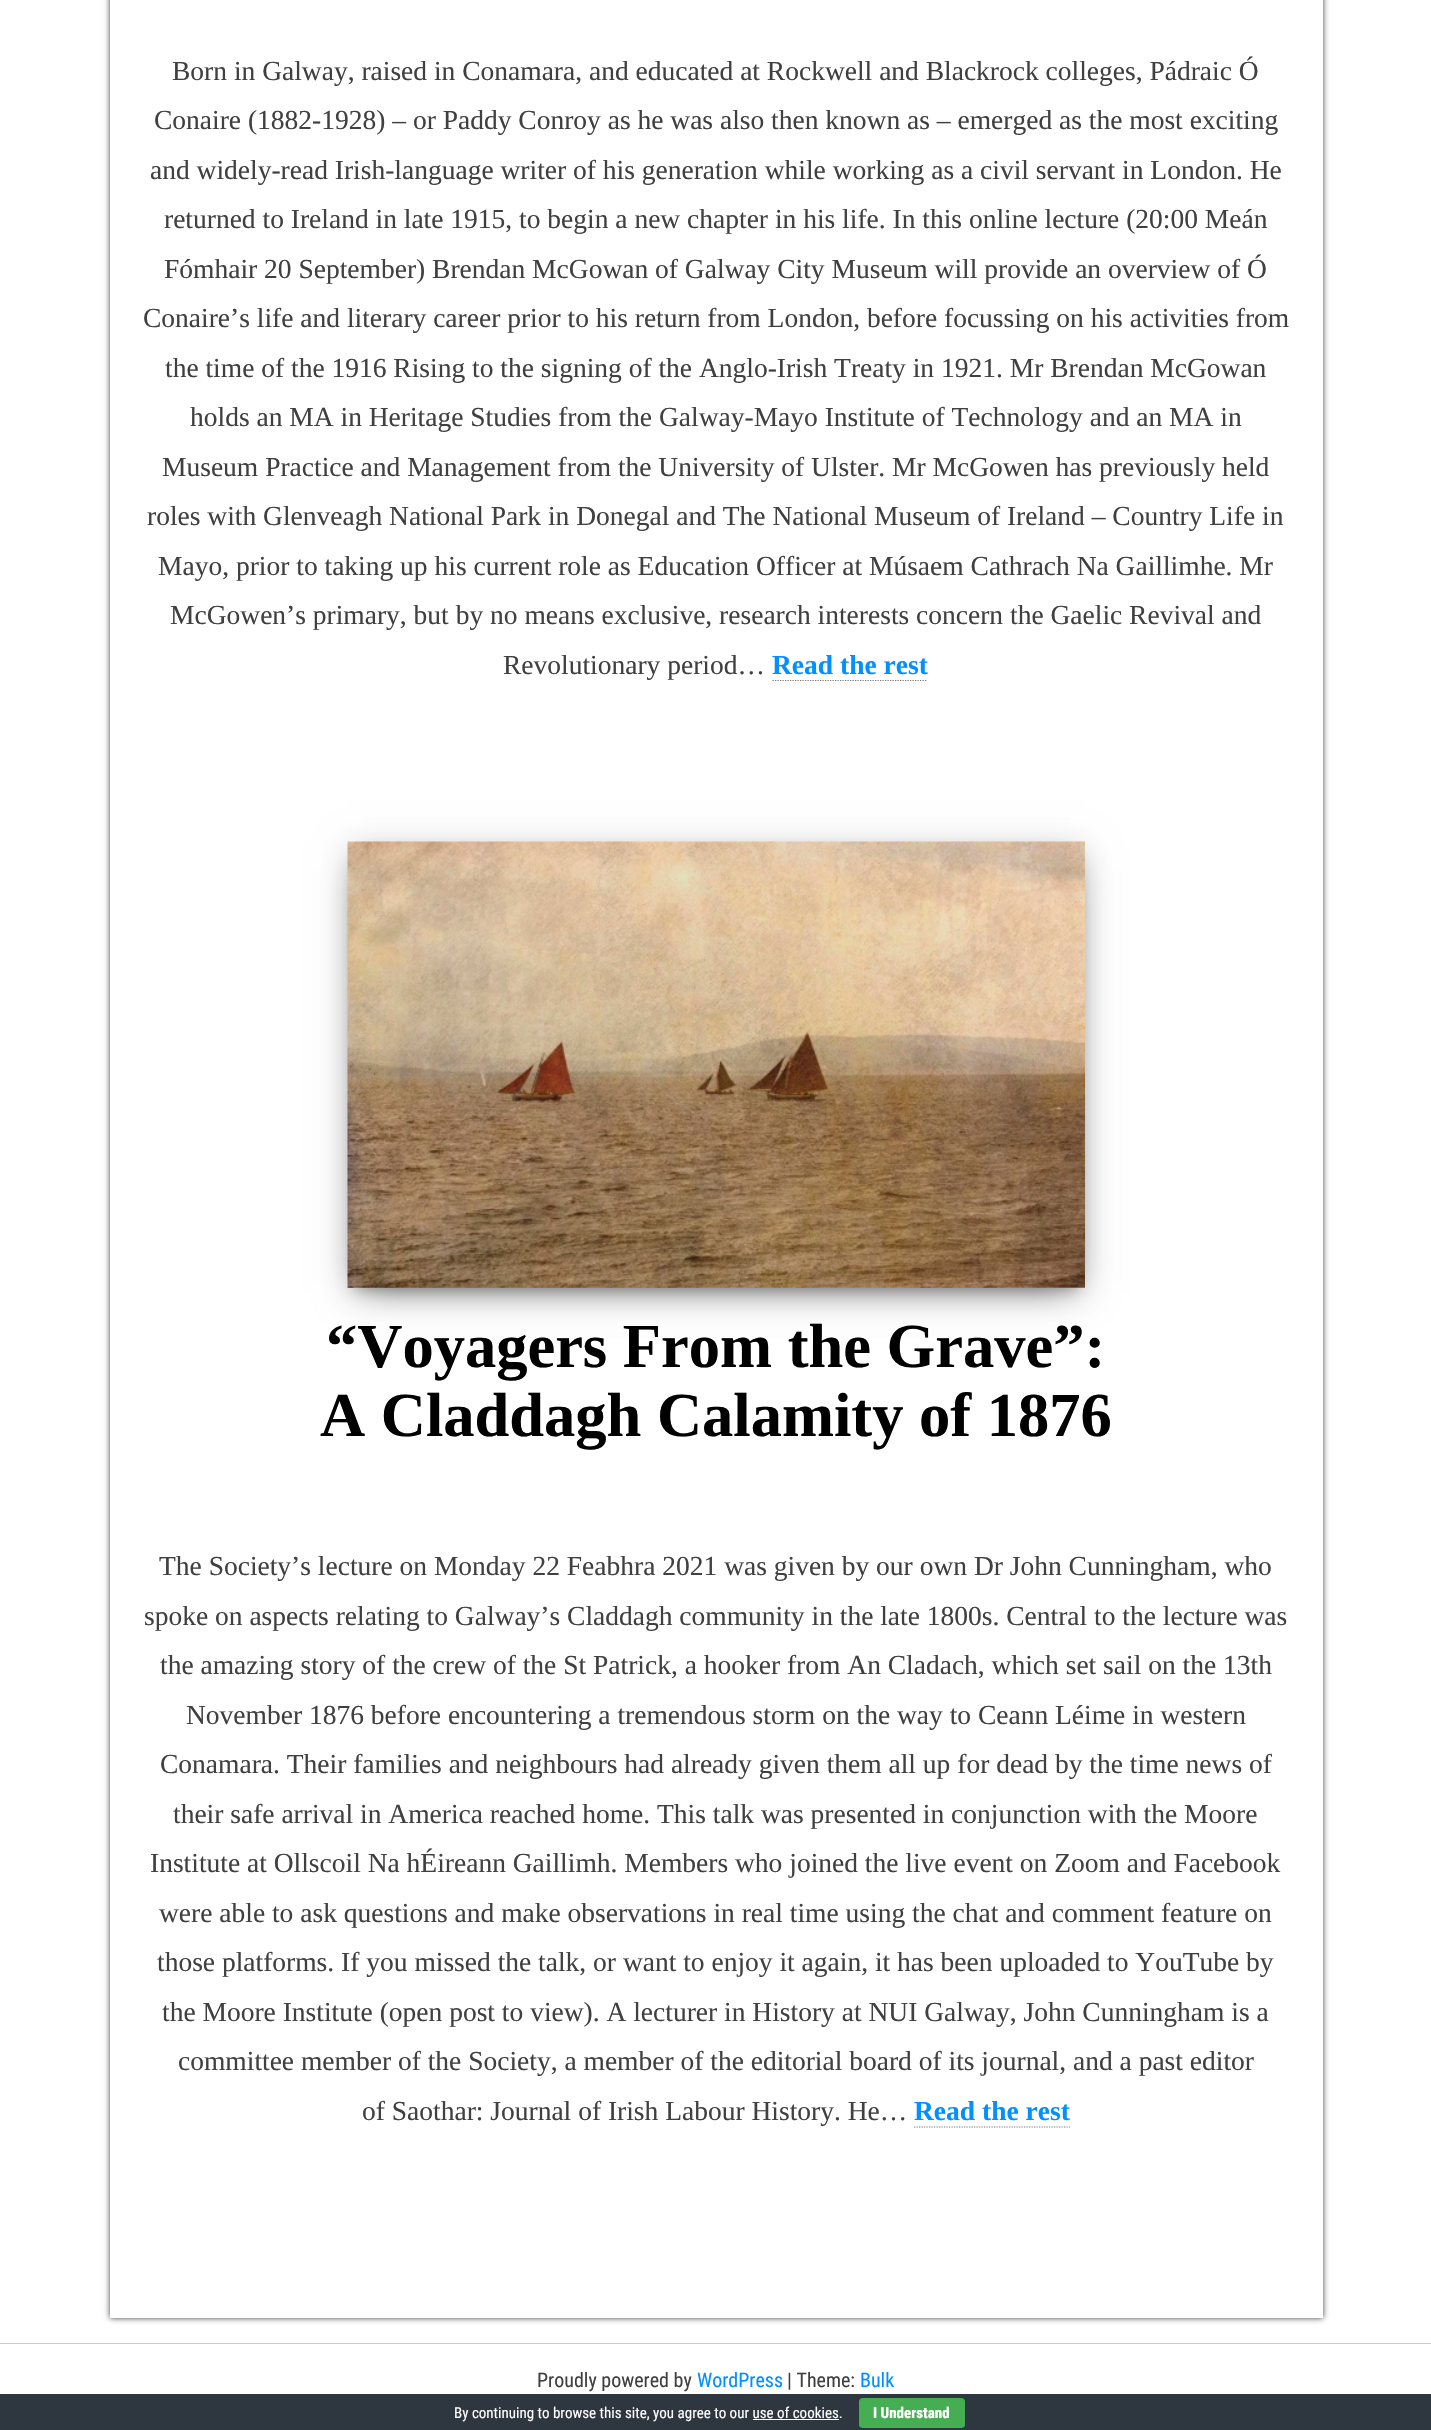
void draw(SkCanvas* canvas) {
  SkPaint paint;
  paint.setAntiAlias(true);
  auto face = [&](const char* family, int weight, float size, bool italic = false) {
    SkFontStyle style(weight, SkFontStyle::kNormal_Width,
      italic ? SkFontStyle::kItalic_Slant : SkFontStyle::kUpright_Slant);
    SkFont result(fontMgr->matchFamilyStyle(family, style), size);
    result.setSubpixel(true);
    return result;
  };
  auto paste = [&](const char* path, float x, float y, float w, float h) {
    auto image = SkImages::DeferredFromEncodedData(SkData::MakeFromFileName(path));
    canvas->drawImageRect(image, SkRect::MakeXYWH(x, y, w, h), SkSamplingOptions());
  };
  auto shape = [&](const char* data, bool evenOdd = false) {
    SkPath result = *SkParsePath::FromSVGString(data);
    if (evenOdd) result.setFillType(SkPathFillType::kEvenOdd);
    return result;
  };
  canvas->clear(0xffffffff);
  paint.setColor(0xbf000000);
  paint.setMaskFilter(SkMaskFilter::MakeBlur(kNormal_SkBlurStyle, 3));
  canvas->drawRect(SkRect::MakeXYWH(110, -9, 1213, 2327), paint);
  paint.setMaskFilter(nullptr);
  paint.setColor(0xffffffff);
  canvas->drawRect(SkRect::MakeXYWH(110, 0, 1213, 2318), paint);
  paint.setStroke(true);
  paint.setStrokeWidth(1.2f);
  paint.setColor(0xff777777);
  paint.setPathEffect(SkDashPathEffect::Make({{1.25f, 1.25f}}, 0));
  canvas->drawPath(shape("M772.5 680.5H927.5"), paint);
  paint.setPathEffect(nullptr);
  paint.setStroke(false);
  paint.setColor(0x1f000000);
  paint.setMaskFilter(SkMaskFilter::MakeBlur(kNormal_SkBlurStyle, 15.5f));
  canvas->drawRect(SkRect::MakeXYWH(348, 846, 737, 447), paint);
  paint.setMaskFilter(nullptr);
  paint.setColor(0x8f000000);
  paint.setMaskFilter(SkMaskFilter::MakeBlur(kNormal_SkBlurStyle, 17.5f));
  canvas->drawRect(SkRect::MakeXYWH(363, 869, 707, 416), paint);
  paint.setMaskFilter(nullptr);
  paint.setColor(0x33000000);
  paint.setMaskFilter(SkMaskFilter::MakeBlur(kNormal_SkBlurStyle, 6));
  canvas->drawRect(SkRect::MakeXYWH(354, 858, 725, 433), paint);
  paint.setMaskFilter(nullptr);
  paste("img/1.png", 347, 841, 738, 447);
  paint.setStroke(true);
  paint.setColor(0xff777777);
  paint.setPathEffect(SkDashPathEffect::Make({{1.25f, 1.25f}}, 0));
  canvas->drawPath(shape("M914 2127H1070"), paint);
  paint.setPathEffect(nullptr);
  paint.setStroke(false);
  paint.setColor(0xffcccccc);
  canvas->drawRect(SkRect::MakeXYWH(0, 2343, 1431, 1), paint);
  paint.setColor(0xff2e363f);
  canvas->drawRect(SkRect::MakeXYWH(0, 2394, 1431, 36), paint);
  paint.setColor(0xff45ae52);
  canvas->drawRoundRect(SkRect::MakeXYWH(859, 2398, 106, 30), 4, 4, paint);
  paint.setColor(0xffffffff);
  canvas->drawRect(SkRect::MakeXYWH(753, 2419, 86, 1), paint);
  auto f0 = face("Liberation Serif", 400, 27.5f);
  paint.setColor(0xff404040);
  {
    const struct { const char* s; float x, y; } items[] = {
      {"Born in Galway, raised in Conamara, and educated at Rockwell and Blackrock colleges, Pádraic Ó", 172, 80},
      {"Conaire (1882-1928) – or Paddy Conroy as he was also then known as – emerged as the most exciting", 154, 129},
      {"and widely-read Irish-language writer of his generation while working as a civil servant in London. He", 150, 179},
      {"returned to Ireland in late 1915, to begin a new chapter in his life. In this online lecture (20:00 Meán", 164, 228},
      {"Fómhair 20 September) Brendan McGowan of Galway City Museum will provide an overview of Ó", 164, 278},
      {"Conaire’s life and literary career prior to his return from London, before focussing on his activities from", 143, 327},
      {"the time of the 1916 Rising to the signing of the Anglo-Irish Treaty in 1921. Mr Brendan McGowan", 165, 377},
      {"holds an MA in Heritage Studies from the Galway-Mayo Institute of Technology and an MA in", 190, 426},
      {"Museum Practice and Management from the University of Ulster. Mr McGowen has previously held", 162, 476},
      {"roles with Glenveagh National Park in Donegal and The National Museum of Ireland – Country Life in", 147, 525},
      {"Mayo, prior to taking up his current role as Education Officer at Músaem Cathrach Na Gaillimhe. Mr", 158, 575},
      {"McGowen’s primary, but by no means exclusive, research interests concern the Gaelic Revival and", 170, 624},
      {"Revolutionary period…", 503, 674},
    };
    for (auto [s, x, y] : items) {
      canvas->drawString(s, x, y, f0, paint);
    }
  }
  auto f1 = face("Liberation Serif", 700, 27.5f);
  paint.setColor(0xff0090ff);
  canvas->drawString("Read the rest", 772, 674, f1, paint);
  auto f2 = face("Liberation Serif", 700, 62.5f);
  paint.setColor(0xff000000);
  canvas->drawString("“Voyagers From the Grave”:", 326, 1367, f2, paint);
  canvas->drawString("A Claddagh Calamity of 1876", 320, 1436, f2, paint);
  paint.setColor(0xff404040);
  {
    const struct { const char* s; float x, y; } items[] = {
      {"The Society’s lecture on Monday 22 Feabhra 2021 was given by our own Dr John Cunningham, who", 159, 1575},
      {"spoke on aspects relating to Galway’s Claddagh community in the late 1800s. Central to the lecture was", 144, 1625},
      {"the amazing story of the crew of the St Patrick, a hooker from An Cladach, which set sail on the 13th", 160, 1674},
      {"November 1876 before encountering a tremendous storm on the way to Ceann Léime in western", 186, 1724},
      {"Conamara. Their families and neighbours had already given them all up for dead by the time news of", 160, 1773},
      {"their safe arrival in America reached home. This talk was presented in conjunction with the Moore", 173, 1823},
      {"Institute at Ollscoil Na hÉireann Gaillimh. Members who joined the live event on Zoom and Facebook", 150, 1872},
      {"were able to ask questions and make observations in real time using the chat and comment feature on", 159, 1922},
      {"those platforms. If you missed the talk, or want to enjoy it again, it has been uploaded to YouTube by", 157, 1971},
      {"the Moore Institute (open post to view). A lecturer in History at NUI Galway, John Cunningham is a", 162, 2021},
      {"committee member of the Society, a member of the editorial board of its journal, and a past editor", 178, 2070},
      {"of Saothar: Journal of Irish Labour History. He…", 362, 2120},
    };
    for (auto [s, x, y] : items) {
      canvas->drawString(s, x, y, f0, paint);
    }
  }
  paint.setColor(0xff0090ff);
  canvas->drawString("Read the rest", 914, 2120, f1, paint);
  auto f3 = face("Roboto Condensed", 400, 20);
  paint.setColor(0xff404040);
  canvas->drawString("Proudly powered by", 537, 2387, f3, paint);
  paint.setColor(0xff0090ff);
  canvas->drawString("WordPress", 697, 2387, f3, paint);
  paint.setColor(0xff404040);
  canvas->drawString("| Theme:", 787, 2387, f3, paint);
  paint.setColor(0xff0090ff);
  canvas->drawString("Bulk", 860, 2387, f3, paint);
  auto f4 = face("Roboto Condensed", 400, 15);
  paint.setColor(0xffffffff);
  canvas->drawString("By continuing to browse this site, you agree to our use of cookies.", 454, 2418, f4, paint);
  auto f5 = face("Roboto Condensed", 800, 15);
  canvas->drawString("I Understand", 873, 2418, f5, paint);
}
